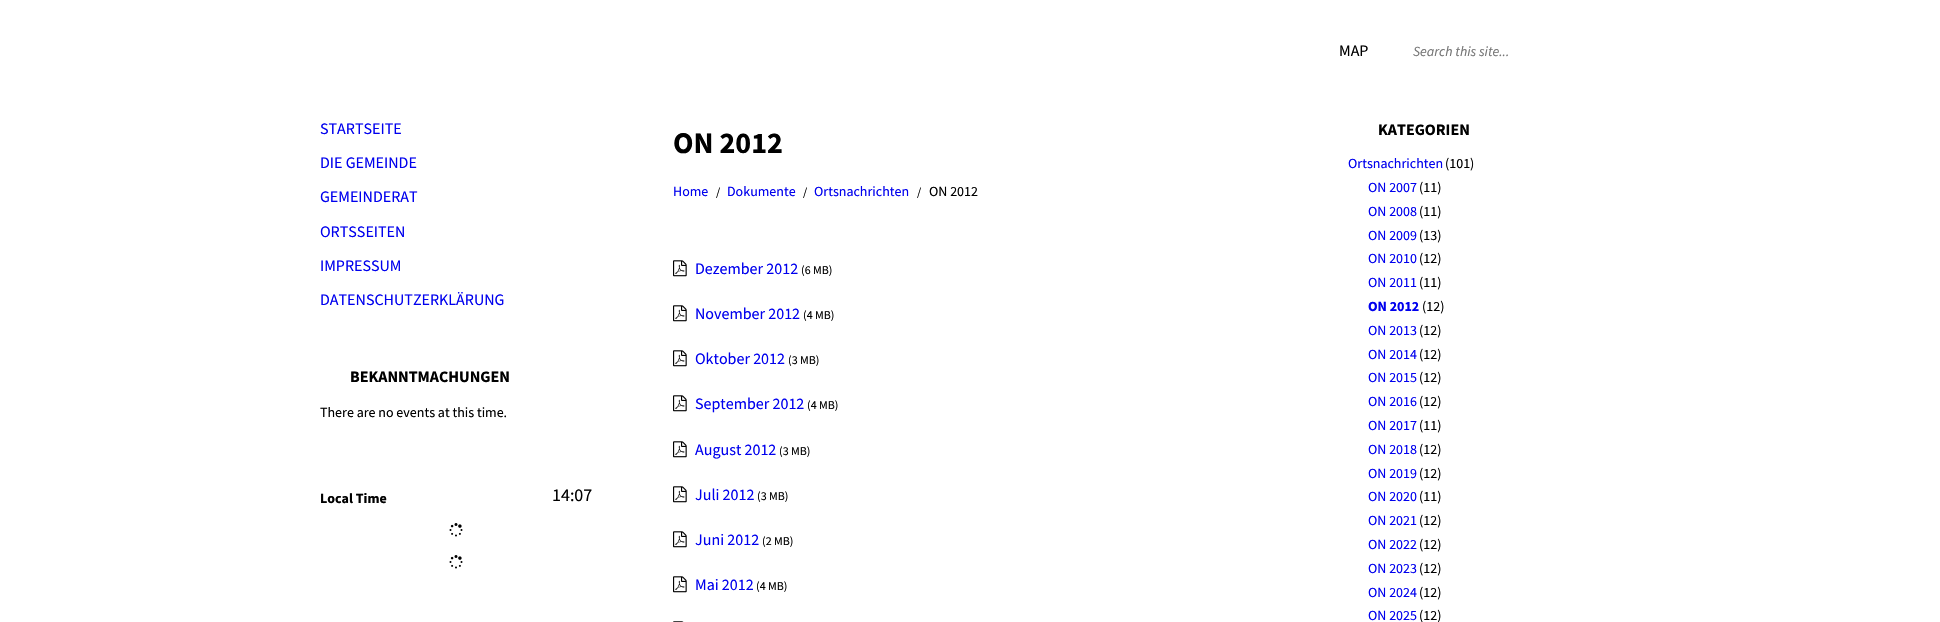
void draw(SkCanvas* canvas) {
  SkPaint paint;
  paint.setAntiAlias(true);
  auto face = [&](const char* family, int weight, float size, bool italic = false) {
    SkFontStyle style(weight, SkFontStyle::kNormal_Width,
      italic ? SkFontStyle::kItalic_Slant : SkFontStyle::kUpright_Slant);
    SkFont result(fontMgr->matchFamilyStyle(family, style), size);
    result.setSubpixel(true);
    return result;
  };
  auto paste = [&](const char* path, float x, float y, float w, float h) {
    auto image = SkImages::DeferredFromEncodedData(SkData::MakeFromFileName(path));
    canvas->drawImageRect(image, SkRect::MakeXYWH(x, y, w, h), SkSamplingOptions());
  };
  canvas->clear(0xffffffff);
  paste("img/1.png", 449, 523, 14, 14);
  paste("img/1.png", 449, 555, 14, 14);
  paste("img/2.png", 673, 260, 14, 17);
  paste("img/2.png", 673, 305, 14, 17);
  paste("img/2.png", 673, 350, 14, 17);
  paste("img/2.png", 673, 395, 14, 17);
  paste("img/2.png", 673, 441, 14, 17);
  paste("img/2.png", 673, 486, 14, 17);
  paste("img/2.png", 673, 531, 14, 17);
  paste("img/2.png", 673, 576, 14, 17);
  paste("img/3.png", 673, 621, 11, 1);
  auto f0 = face("Source Sans Pro", 400, 16);
  paint.setColor(0xff000000);
  canvas->drawString("MAP", 1339, 56, f0, paint);
  auto f1 = face("Source Sans Pro", 400, 14, true);
  paint.setColor(0xff757575);
  canvas->drawString("Search this site...", 1413, 56, f1, paint);
  paint.setColor(0xff0000ee);
  {
    const struct { const char* s; float x, y; } items[] = {
      {"STARTSEITE", 320, 134},
      {"DIE GEMEINDE", 320, 168},
      {"GEMEINDERAT", 320, 202},
      {"ORTSSEITEN", 320, 237},
      {"IMPRESSUM", 320, 271},
      {"DATENSCHUTZERKLÄRUNG", 320, 305},
    };
    for (auto [s, x, y] : items) {
      canvas->drawString(s, x, y, f0, paint);
    }
  }
  auto f2 = face("Source Sans Pro", 700, 16);
  paint.setColor(0xff000000);
  canvas->drawString("BEKANNTMACHUNGEN", 350, 382, f2, paint);
  auto f3 = face("Source Sans Pro", 400, 14);
  canvas->drawString("There are no events at this time.", 320, 417, f3, paint);
  auto f4 = face("Source Sans Pro", 700, 14);
  canvas->drawString("Local Time", 320, 503, f4, paint);
  auto f5 = face("Source Sans Pro", 400, 18);
  canvas->drawString("14:07", 552, 501, f5, paint);
  auto f6 = face("Source Sans Pro", 700, 30);
  canvas->drawString("ON 2012", 673, 153, f6, paint);
  paint.setColor(0xff0000ee);
  canvas->drawString("Home", 673, 196, f3, paint);
  auto f7 = face("Source Sans Pro", 400, 12);
  paint.setColor(0xff000000);
  canvas->drawString("/", 716, 196, f7, paint);
  paint.setColor(0xff0000ee);
  canvas->drawString("Dokumente", 727, 196, f3, paint);
  paint.setColor(0xff000000);
  canvas->drawString("/", 803, 196, f7, paint);
  paint.setColor(0xff0000ee);
  canvas->drawString("Ortsnachrichten", 814, 196, f3, paint);
  paint.setColor(0xff000000);
  canvas->drawString("/", 917, 196, f7, paint);
  canvas->drawString("ON 2012", 929, 196, f3, paint);
  paint.setColor(0xff0000ee);
  canvas->drawString("Dezember 2012", 695, 274, f0, paint);
  paint.setColor(0xff000000);
  canvas->drawString("(6 MB)", 801, 274, f7, paint);
  paint.setColor(0xff0000ee);
  canvas->drawString("November 2012", 695, 319, f0, paint);
  paint.setColor(0xff000000);
  canvas->drawString("(4 MB)", 803, 319, f7, paint);
  paint.setColor(0xff0000ee);
  canvas->drawString("Oktober 2012", 695, 364, f0, paint);
  paint.setColor(0xff000000);
  canvas->drawString("(3 MB)", 788, 364, f7, paint);
  paint.setColor(0xff0000ee);
  canvas->drawString("September 2012", 695, 409, f0, paint);
  paint.setColor(0xff000000);
  canvas->drawString("(4 MB)", 807, 409, f7, paint);
  paint.setColor(0xff0000ee);
  canvas->drawString("August 2012", 695, 455, f0, paint);
  paint.setColor(0xff000000);
  canvas->drawString("(3 MB)", 779, 455, f7, paint);
  paint.setColor(0xff0000ee);
  canvas->drawString("Juli 2012", 695, 500, f0, paint);
  paint.setColor(0xff000000);
  canvas->drawString("(3 MB)", 757, 500, f7, paint);
  paint.setColor(0xff0000ee);
  canvas->drawString("Juni 2012", 695, 545, f0, paint);
  paint.setColor(0xff000000);
  canvas->drawString("(2 MB)", 762, 545, f7, paint);
  paint.setColor(0xff0000ee);
  canvas->drawString("Mai 2012", 695, 590, f0, paint);
  paint.setColor(0xff000000);
  canvas->drawString("(4 MB)", 756, 590, f7, paint);
  canvas->drawString("KATEGORIEN", 1378, 135, f2, paint);
  paint.setColor(0xff0000ee);
  canvas->drawString("Ortsnachrichten", 1348, 168, f3, paint);
  paint.setColor(0xff000000);
  canvas->drawString("(101)", 1445, 168, f3, paint);
  paint.setColor(0xff0000ee);
  canvas->drawString("ON 2007", 1368, 192, f3, paint);
  paint.setColor(0xff000000);
  canvas->drawString("(11)", 1419, 192, f3, paint);
  paint.setColor(0xff0000ee);
  canvas->drawString("ON 2008", 1368, 216, f3, paint);
  paint.setColor(0xff000000);
  canvas->drawString("(11)", 1419, 216, f3, paint);
  paint.setColor(0xff0000ee);
  canvas->drawString("ON 2009", 1368, 240, f3, paint);
  paint.setColor(0xff000000);
  canvas->drawString("(13)", 1419, 240, f3, paint);
  paint.setColor(0xff0000ee);
  canvas->drawString("ON 2010", 1368, 263, f3, paint);
  paint.setColor(0xff000000);
  canvas->drawString("(12)", 1419, 263, f3, paint);
  paint.setColor(0xff0000ee);
  canvas->drawString("ON 2011", 1368, 287, f3, paint);
  paint.setColor(0xff000000);
  canvas->drawString("(11)", 1419, 287, f3, paint);
  paint.setColor(0xff0000ee);
  canvas->drawString("ON 2012", 1368, 311, f4, paint);
  paint.setColor(0xff000000);
  canvas->drawString("(12)", 1422, 311, f3, paint);
  paint.setColor(0xff0000ee);
  canvas->drawString("ON 2013", 1368, 335, f3, paint);
  paint.setColor(0xff000000);
  canvas->drawString("(12)", 1419, 335, f3, paint);
  paint.setColor(0xff0000ee);
  canvas->drawString("ON 2014", 1368, 359, f3, paint);
  paint.setColor(0xff000000);
  canvas->drawString("(12)", 1419, 359, f3, paint);
  paint.setColor(0xff0000ee);
  canvas->drawString("ON 2015", 1368, 382, f3, paint);
  paint.setColor(0xff000000);
  canvas->drawString("(12)", 1419, 382, f3, paint);
  paint.setColor(0xff0000ee);
  canvas->drawString("ON 2016", 1368, 406, f3, paint);
  paint.setColor(0xff000000);
  canvas->drawString("(12)", 1419, 406, f3, paint);
  paint.setColor(0xff0000ee);
  canvas->drawString("ON 2017", 1368, 430, f3, paint);
  paint.setColor(0xff000000);
  canvas->drawString("(11)", 1419, 430, f3, paint);
  paint.setColor(0xff0000ee);
  canvas->drawString("ON 2018", 1368, 454, f3, paint);
  paint.setColor(0xff000000);
  canvas->drawString("(12)", 1419, 454, f3, paint);
  paint.setColor(0xff0000ee);
  canvas->drawString("ON 2019", 1368, 478, f3, paint);
  paint.setColor(0xff000000);
  canvas->drawString("(12)", 1419, 478, f3, paint);
  paint.setColor(0xff0000ee);
  canvas->drawString("ON 2020", 1368, 501, f3, paint);
  paint.setColor(0xff000000);
  canvas->drawString("(11)", 1419, 501, f3, paint);
  paint.setColor(0xff0000ee);
  canvas->drawString("ON 2021", 1368, 525, f3, paint);
  paint.setColor(0xff000000);
  canvas->drawString("(12)", 1419, 525, f3, paint);
  paint.setColor(0xff0000ee);
  canvas->drawString("ON 2022", 1368, 549, f3, paint);
  paint.setColor(0xff000000);
  canvas->drawString("(12)", 1419, 549, f3, paint);
  paint.setColor(0xff0000ee);
  canvas->drawString("ON 2023", 1368, 573, f3, paint);
  paint.setColor(0xff000000);
  canvas->drawString("(12)", 1419, 573, f3, paint);
  paint.setColor(0xff0000ee);
  canvas->drawString("ON 2024", 1368, 597, f3, paint);
  paint.setColor(0xff000000);
  canvas->drawString("(12)", 1419, 597, f3, paint);
  paint.setColor(0xff0000ee);
  canvas->drawString("ON 2025", 1368, 620, f3, paint);
  paint.setColor(0xff000000);
  canvas->drawString("(12)", 1419, 620, f3, paint);
}
